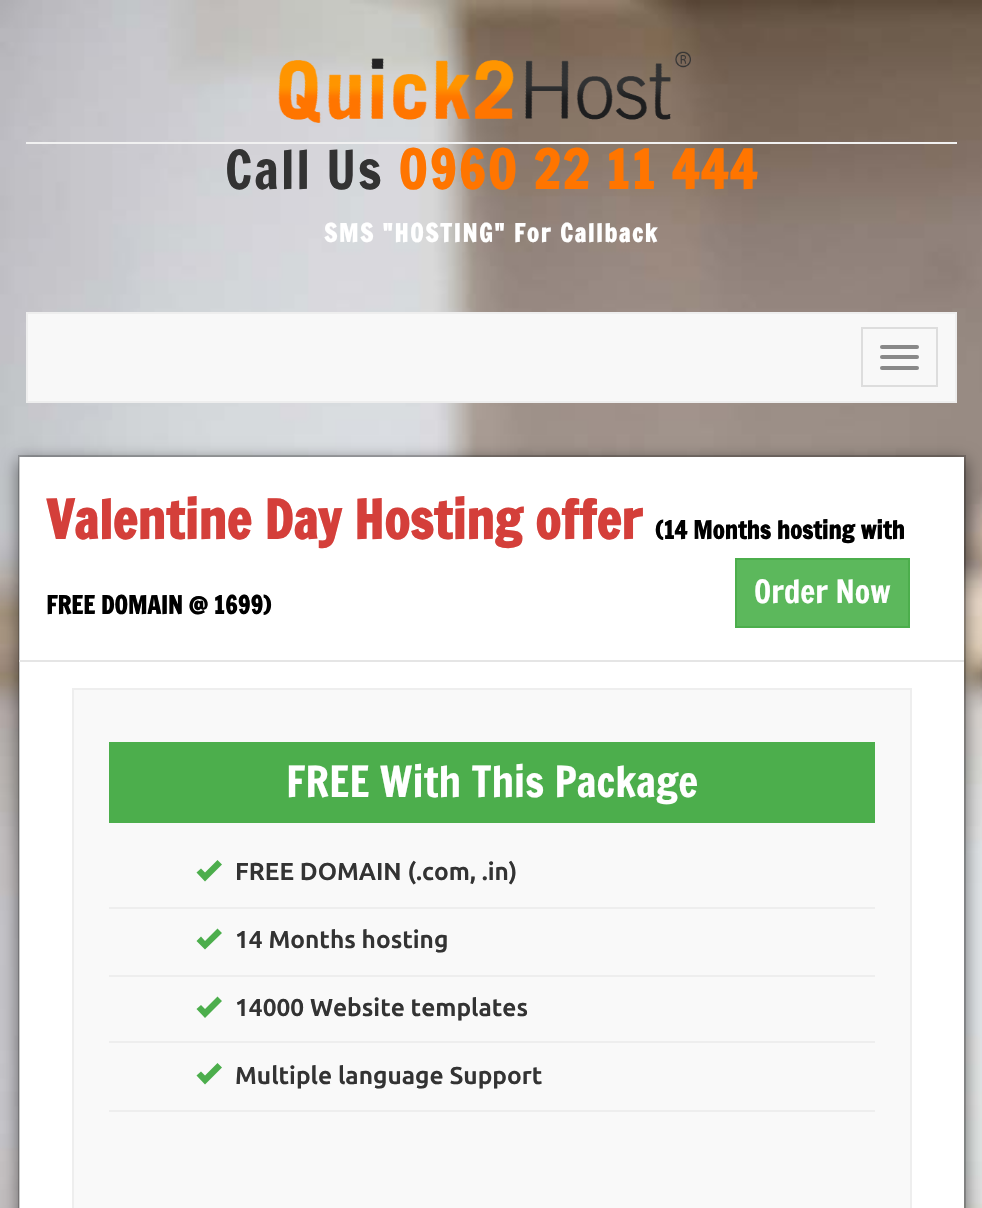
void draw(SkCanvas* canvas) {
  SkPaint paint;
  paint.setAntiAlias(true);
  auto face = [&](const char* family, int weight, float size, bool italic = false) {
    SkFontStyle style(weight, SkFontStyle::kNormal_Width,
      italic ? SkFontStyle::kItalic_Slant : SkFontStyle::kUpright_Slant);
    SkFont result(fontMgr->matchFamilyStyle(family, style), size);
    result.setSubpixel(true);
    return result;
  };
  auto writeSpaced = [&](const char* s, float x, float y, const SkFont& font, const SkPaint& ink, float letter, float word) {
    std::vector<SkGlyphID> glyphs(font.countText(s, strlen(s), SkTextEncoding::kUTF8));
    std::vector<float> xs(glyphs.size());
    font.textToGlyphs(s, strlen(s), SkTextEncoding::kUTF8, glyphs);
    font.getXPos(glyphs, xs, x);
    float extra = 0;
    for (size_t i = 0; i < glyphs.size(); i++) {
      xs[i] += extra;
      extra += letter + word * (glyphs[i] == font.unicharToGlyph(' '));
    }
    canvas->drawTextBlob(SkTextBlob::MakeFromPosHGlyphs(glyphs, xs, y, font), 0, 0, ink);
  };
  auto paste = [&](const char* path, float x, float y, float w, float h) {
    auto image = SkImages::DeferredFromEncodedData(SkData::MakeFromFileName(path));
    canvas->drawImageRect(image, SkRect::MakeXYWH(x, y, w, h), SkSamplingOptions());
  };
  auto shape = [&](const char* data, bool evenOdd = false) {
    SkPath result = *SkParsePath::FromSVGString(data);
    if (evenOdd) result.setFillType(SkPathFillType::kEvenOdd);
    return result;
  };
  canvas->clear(0xffffffff);
  paste("img/1.png", 0, 0, 982, 1208);
  paste("img/2.png", 278, 51, 413, 72);
  paint.setColor(0xfff1f1f1);
  canvas->drawRect(SkRect::MakeXYWH(26, 142, 931, 2), paint);
  paint.setColor(0xfff8f8f8);
  canvas->drawRect(SkRect::MakeXYWH(27, 313, 929, 89), paint);
  paint.setStroke(true);
  paint.setStrokeWidth(2);
  paint.setColor(0xffeeeeee);
  canvas->drawRect(SkRect::MakeXYWH(27, 313, 929, 89), paint);
  paint.setColor(0xffdddddd);
  canvas->drawRect(SkRect::MakeXYWH(862, 328, 75, 58), paint);
  paint.setStroke(false);
  paint.setColor(0xff888888);
  canvas->drawRoundRect(SkRect::MakeXYWH(880, 345, 39, 4), 2, 2, paint);
  canvas->drawRoundRect(SkRect::MakeXYWH(880, 355, 39, 4), 2, 2, paint);
  canvas->drawRoundRect(SkRect::MakeXYWH(880, 366, 39, 4), 2, 2, paint);
  paint.setColor(0x80000000);
  paint.setMaskFilter(SkMaskFilter::MakeBlur(kNormal_SkBlurStyle, 8));
  canvas->drawRect(SkRect::MakeXYWH(18, 460, 948, 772), paint);
  paint.setMaskFilter(nullptr);
  paint.setColor(0xffffffff);
  canvas->drawRect(SkRect::MakeXYWH(19, 457, 945, 751), paint);
  paint.setStroke(true);
  paint.setColor(0x33000000);
  canvas->drawRect(SkRect::MakeXYWH(19, 456, 946, 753), paint);
  paint.setStroke(false);
  paint.setColor(0xffe5e5e5);
  canvas->drawRect(SkRect::MakeXYWH(19, 660, 945, 2), paint);
  paint.setColor(0xff5cb85c);
  canvas->drawRect(SkRect::MakeXYWH(736, 559, 173, 68), paint);
  paint.setStroke(true);
  paint.setColor(0xff4cae4c);
  canvas->drawRect(SkRect::MakeXYWH(736, 559, 173, 68), paint);
  paint.setStroke(false);
  paint.setColor(0xfff9f9f9);
  canvas->drawRect(SkRect::MakeXYWH(73, 689, 838, 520), paint);
  paint.setStroke(true);
  paint.setColor(0xffeeeeee);
  canvas->drawRect(SkRect::MakeXYWH(73, 689, 838, 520), paint);
  paint.setStroke(false);
  paint.setColor(0xff4cae4c);
  canvas->drawRect(SkRect::MakeXYWH(109, 742, 766, 81), paint);
  paint.setColor(0xffeeeeee);
  canvas->drawRect(SkRect::MakeXYWH(109, 907, 766, 2), paint);
  paint.setColor(0xff4cae4c);
  canvas->drawPath(shape("M196.5 872.5L205 881.5L222 864.5L217.5 860L205 872.5L201 868.5Z"), paint);
  paint.setColor(0xffeeeeee);
  canvas->drawRect(SkRect::MakeXYWH(109, 975, 766, 2), paint);
  paint.setColor(0xff4cae4c);
  canvas->drawPath(shape("M196.5 941L205 949.5L222 933L217.5 928.5L205 941L201 936.5Z"), paint);
  paint.setColor(0xffeeeeee);
  canvas->drawRect(SkRect::MakeXYWH(109, 1041, 766, 2), paint);
  paint.setColor(0xff4cae4c);
  canvas->drawPath(shape("M196.5 1009L205 1018L222 1001L217.5 996.5L205 1009L201 1005Z"), paint);
  paint.setColor(0xffeeeeee);
  canvas->drawRect(SkRect::MakeXYWH(109, 1110, 766, 2), paint);
  paint.setColor(0xff4cae4c);
  canvas->drawPath(shape("M196.5 1075.5L205 1084.5L222 1067.5L217.5 1063L205 1075.5L201 1071.5Z"), paint);
  auto f0 = face("Francois One", 400, 52.5f);
  paint.setColor(0xff333333);
  writeSpaced("Call Us", 225, 189, f0, paint, 1.75f, 0);
  auto f1 = face("Francois One", 700, 52.5f);
  paint.setColor(0xffff7500);
  writeSpaced("0960 22 11 444", 398, 189, f1, paint, 1.75f, 0);
  auto f2 = face("Francois One", 700, 24.5f);
  paint.setColor(0xffffffff);
  writeSpaced("SMS \"HOSTING\" For Callback", 324, 242, f2, paint, 1.75f, 0);
  paint.setColor(0xffd43f3a);
  canvas->drawString("Valentine Day Hosting offer", 46, 539, f1, paint);
  paint.setColor(0xff000000);
  canvas->drawString("(14 Months hosting with", 655, 539, f2, paint);
  canvas->drawString("FREE DOMAIN @ 1699)", 46, 614, f2, paint);
  auto f3 = face("Francois One", 400, 31.5f);
  paint.setColor(0xffffffff);
  canvas->drawString("Order Now", 754, 603, f3, paint);
  auto f4 = face("Francois One", 400, 42);
  canvas->drawString("FREE With This Package", 286, 797, f4, paint);
  auto f5 = face("Ubuntu", 700, 24.5f);
  paint.setColor(0xff333333);
  {
    const struct { const char* s; float x, y; } items[] = {
      {"FREE DOMAIN (.com, .in)", 235, 880},
      {"14 Months hosting", 235, 948},
      {"14000 Website templates", 235, 1016},
      {"Multiple language Support", 235, 1084},
    };
    for (auto [s, x, y] : items) {
      canvas->drawString(s, x, y, f5, paint);
    }
  }
}
